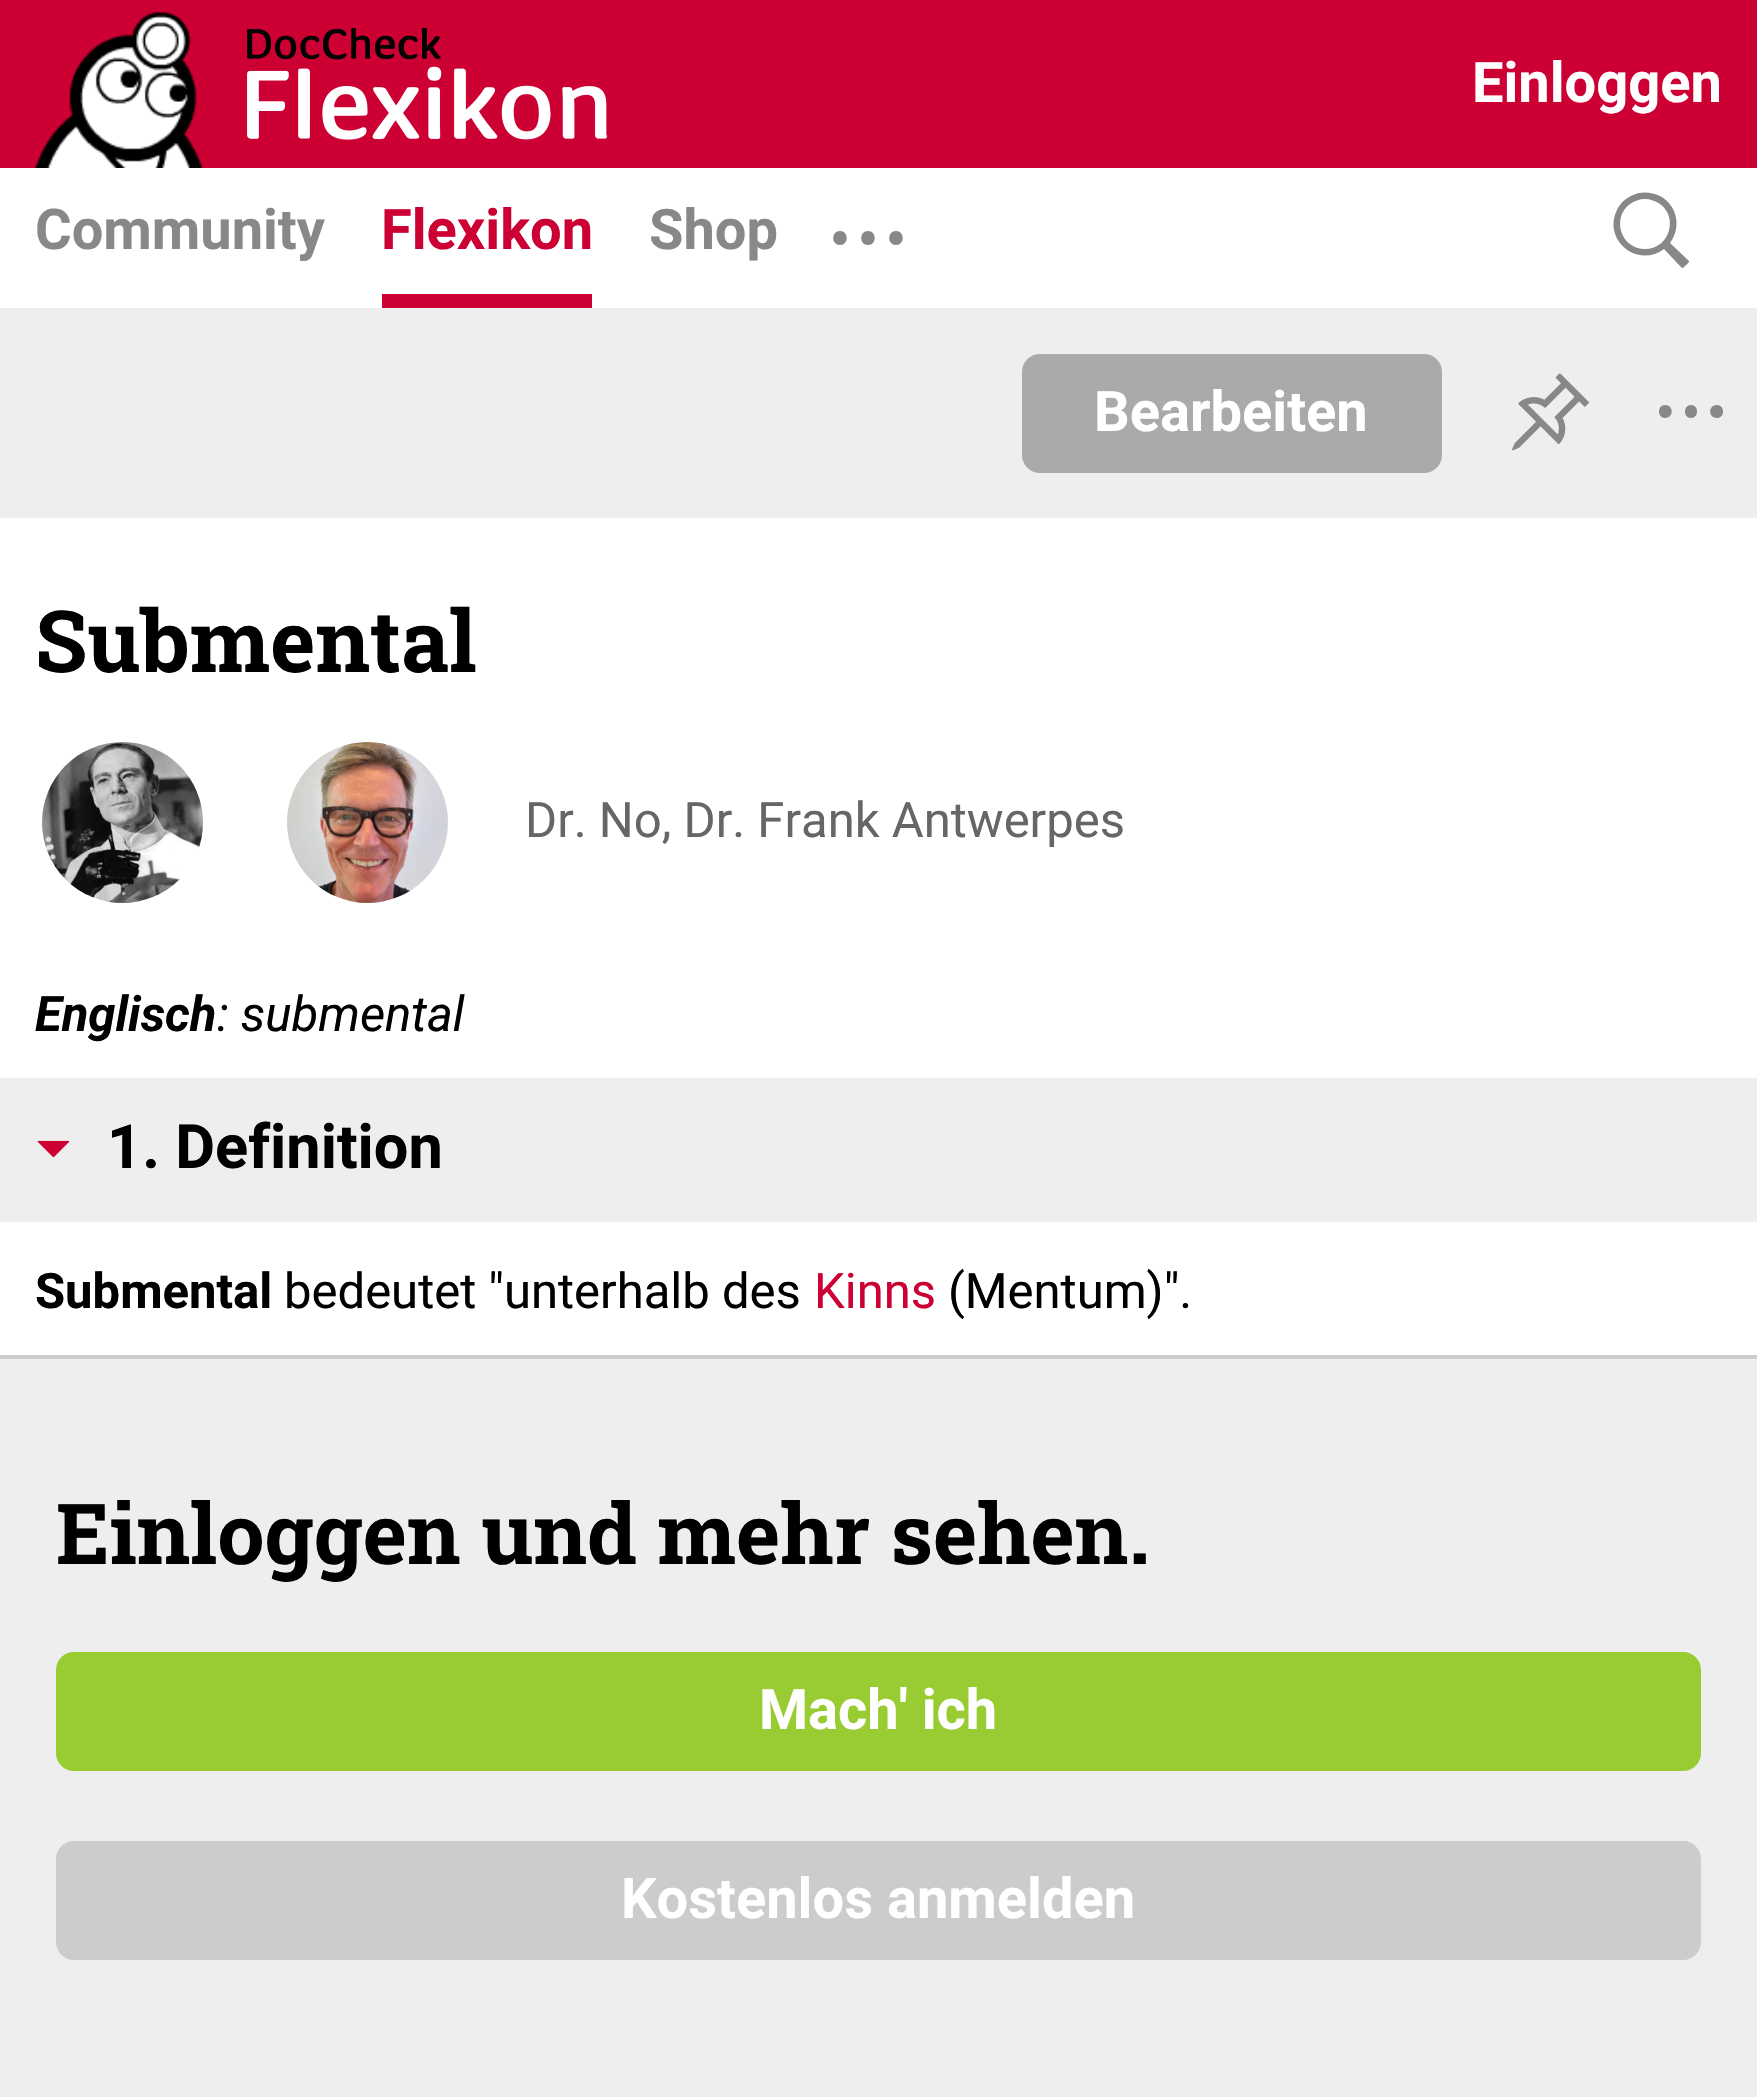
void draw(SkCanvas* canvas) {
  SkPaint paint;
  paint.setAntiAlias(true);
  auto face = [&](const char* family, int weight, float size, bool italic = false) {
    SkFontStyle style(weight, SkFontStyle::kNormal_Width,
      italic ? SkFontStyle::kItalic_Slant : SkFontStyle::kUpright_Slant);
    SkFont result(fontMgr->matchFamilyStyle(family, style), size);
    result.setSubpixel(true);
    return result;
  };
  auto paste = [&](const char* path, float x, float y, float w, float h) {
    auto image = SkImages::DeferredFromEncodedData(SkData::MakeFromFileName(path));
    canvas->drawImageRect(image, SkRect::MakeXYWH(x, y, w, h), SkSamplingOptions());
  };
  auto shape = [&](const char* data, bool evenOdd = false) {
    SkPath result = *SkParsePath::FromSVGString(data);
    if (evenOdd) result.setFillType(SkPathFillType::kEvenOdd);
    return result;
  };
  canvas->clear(0xffeeeeee);
  paint.setColor(0xffcc0033);
  canvas->drawRect(SkRect::MakeXYWH(0, 0, 1757, 168), paint);
  paste("img/1.png", 35, 11, 169, 157);
  paste("img/2.png", 247, 28, 360, 112);
  paint.setColor(0xffffffff);
  canvas->drawRect(SkRect::MakeXYWH(0, 168, 1757, 140), paint);
  paint.setColor(0xffcc0033);
  canvas->drawRect(SkRect::MakeXYWH(382, 294, 210, 14), paint);
  paint.setColor(0xff888888);
  canvas->drawPath(shape("M896 231C887 231 887 245 896 245C905 245 905 231 896 231ZM868 231C859 231 859 245 868 245C877 245 877 231 868 231ZM840 231C831 231 831 245 840 245C849 245 849 231 840 231Z"), paint);
  canvas->drawPath(shape("M1689 261L1670 243C1682 227 1677 205 1660 196C1652 192 1641 191 1633 195C1626 198 1620 203 1617 210C1602 240 1638 269 1664 249L1679 265C1682 268 1682 269 1684 267C1685 266 1690 262 1689 261ZM1645 249C1621 249 1611 218 1630 204C1634 201 1640 199 1645 199C1650 199 1656 201 1660 204C1679 218 1669 249 1645 249Z"), paint);
  paint.setColor(0xffaaaaaa);
  canvas->drawRoundRect(SkRect::MakeXYWH(1022, 354, 420, 119), 18, 18, paint);
  paste("img/3.png", 1512, 373, 77, 78);
  paint.setColor(0xff888888);
  canvas->drawPath(shape("M1717 405C1708 405 1708 418 1717 418C1725 418 1725 405 1717 405ZM1691 405C1683 405 1683 418 1691 418C1699 418 1699 405 1691 405ZM1665 405C1657 405 1657 418 1665 418C1674 418 1674 405 1665 405Z"), paint);
  paint.setColor(0xffffffff);
  canvas->drawRect(SkRect::MakeXYWH(0, 518, 1757, 837), paint);
  paste("img/4.png", 42, 742, 161, 161);
  paste("img/5.png", 287, 742, 161, 161);
  paint.setColor(0xffeeeeee);
  canvas->drawRect(SkRect::MakeXYWH(0, 1078, 1757, 144), paint);
  paste("img/6.png", 37, 1140, 33, 18);
  paint.setColor(0xffcccccc);
  canvas->drawRect(SkRect::MakeXYWH(0, 1355, 1757, 4), paint);
  paint.setColor(0xff99cc33);
  canvas->drawRoundRect(SkRect::MakeXYWH(58, 1654, 1641, 115), 16, 16, paint);
  paint.setStroke(true);
  paint.setStrokeWidth(4);
  canvas->drawRoundRect(SkRect::MakeXYWH(58, 1654, 1641, 115), 16, 16, paint);
  paint.setStroke(false);
  paint.setColor(0xffcccccc);
  canvas->drawRoundRect(SkRect::MakeXYWH(58, 1843, 1641, 115), 16, 16, paint);
  paint.setStroke(true);
  canvas->drawRoundRect(SkRect::MakeXYWH(58, 1843, 1641, 115), 16, 16, paint);
  auto f0 = face("Roboto", 700, 56);
  paint.setStroke(false);
  paint.setColor(0xffffffff);
  canvas->drawString("Einloggen", 1472, 102, f0, paint);
  paint.setColor(0xff888888);
  canvas->drawString("Community", 35, 249, f0, paint);
  paint.setColor(0xffcc0033);
  canvas->drawString("Flexikon", 381, 249, f0, paint);
  paint.setColor(0xff888888);
  canvas->drawString("Shop", 649, 249, f0, paint);
  paint.setColor(0xffffffff);
  canvas->drawString("Bearbeiten", 1094, 431, f0, paint);
  auto f1 = face("Roboto Slab", 700, 85.75f);
  paint.setColor(0xff000000);
  canvas->drawString("Submental", 35, 672, f1, paint);
  auto f2 = face("Roboto", 400, 49);
  paint.setColor(0xff666666);
  canvas->drawString("Dr. No, Dr. Frank Antwerpes", 525, 837, f2, paint);
  auto f3 = face("Roboto", 700, 49, true);
  paint.setColor(0xff000000);
  canvas->drawString("Englisch", 35, 1031, f3, paint);
  auto f4 = face("Roboto", 400, 49, true);
  canvas->drawString(": submental", 217, 1031, f4, paint);
  auto f5 = face("Roboto", 700, 61.25f);
  canvas->drawString("1. Definition", 107, 1168, f5, paint);
  auto f6 = face("Roboto", 700, 49);
  canvas->drawString("Submental", 35, 1308, f6, paint);
  canvas->drawString("bedeutet \"unterhalb des", 284, 1308, f2, paint);
  paint.setColor(0xffcc0033);
  canvas->drawString("Kinns", 814, 1308, f2, paint);
  paint.setColor(0xff000000);
  canvas->drawString("(Mentum)\".", 948, 1308, f2, paint);
  auto f7 = face("Roboto Slab", 700, 84);
  canvas->drawString("Einloggen und mehr sehen.", 56, 1564, f7, paint);
  paint.setColor(0xffffffff);
  canvas->drawString("Mach' ich", 759, 1729, f0, paint);
  canvas->drawString("Kostenlos anmelden", 621, 1918, f0, paint);
}
